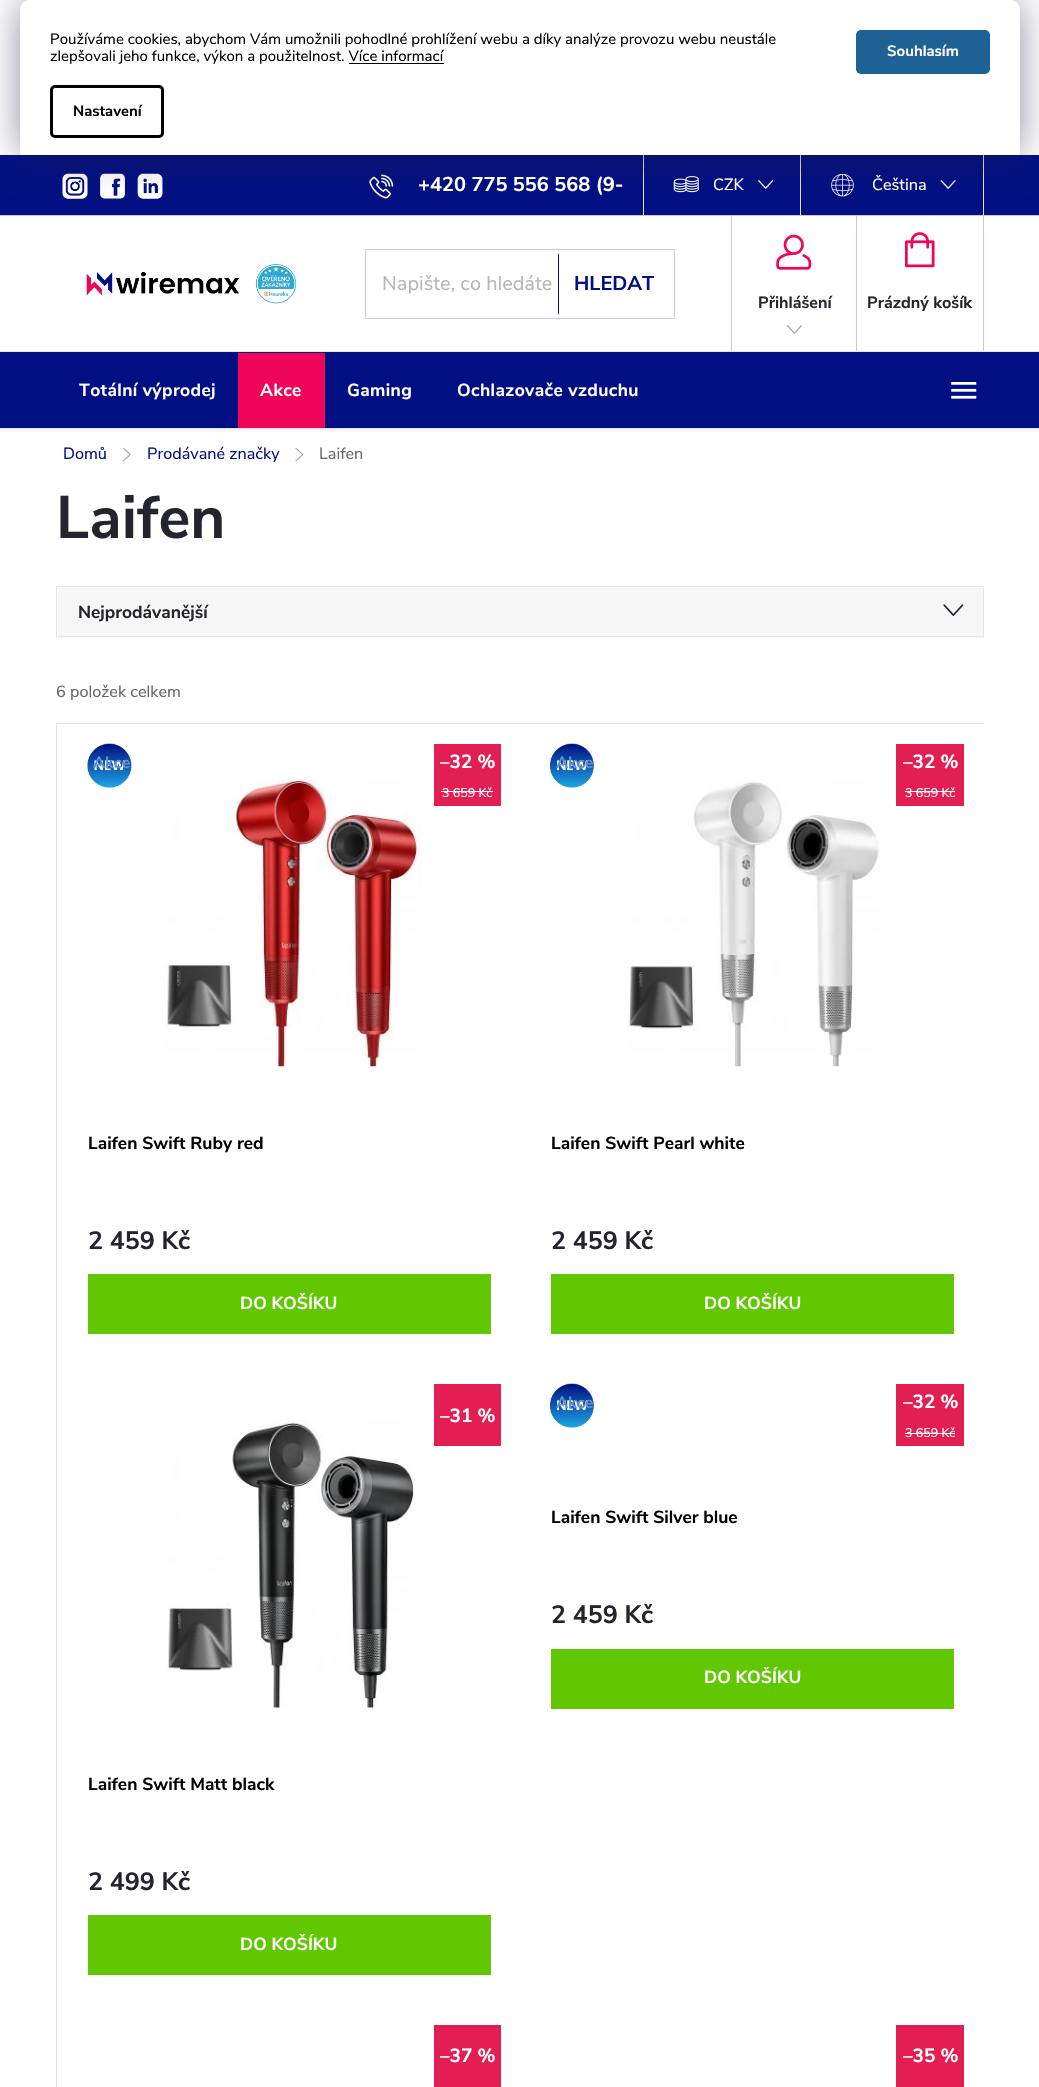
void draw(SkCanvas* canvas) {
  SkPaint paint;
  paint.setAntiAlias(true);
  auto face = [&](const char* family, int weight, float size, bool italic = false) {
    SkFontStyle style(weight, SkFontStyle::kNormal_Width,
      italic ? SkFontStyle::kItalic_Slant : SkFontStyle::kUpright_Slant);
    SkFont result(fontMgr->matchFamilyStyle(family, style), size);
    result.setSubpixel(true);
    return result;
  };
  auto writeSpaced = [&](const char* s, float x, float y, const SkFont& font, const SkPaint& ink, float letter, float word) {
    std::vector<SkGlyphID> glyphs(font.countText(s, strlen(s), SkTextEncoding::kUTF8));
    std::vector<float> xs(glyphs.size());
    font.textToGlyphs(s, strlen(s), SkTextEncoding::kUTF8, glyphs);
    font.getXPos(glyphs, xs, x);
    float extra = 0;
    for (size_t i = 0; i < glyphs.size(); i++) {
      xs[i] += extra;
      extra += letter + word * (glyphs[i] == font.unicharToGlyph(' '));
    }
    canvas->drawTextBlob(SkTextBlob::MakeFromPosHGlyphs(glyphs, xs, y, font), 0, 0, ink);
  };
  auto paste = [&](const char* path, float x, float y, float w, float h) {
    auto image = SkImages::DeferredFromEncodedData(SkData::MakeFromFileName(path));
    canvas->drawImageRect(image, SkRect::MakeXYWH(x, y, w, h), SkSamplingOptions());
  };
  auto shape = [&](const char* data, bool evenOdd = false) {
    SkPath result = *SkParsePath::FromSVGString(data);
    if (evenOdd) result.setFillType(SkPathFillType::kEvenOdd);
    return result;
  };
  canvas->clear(0xffffffff);
  paint.setColor(0xff020f82);
  canvas->drawRect(SkRect::MakeXYWH(0, 155, 1039, 60), paint);
  paste("img/1.png", 62, 173, 26, 26);
  paste("img/2.png", 100, 173, 25, 26);
  paste("img/3.png", 137, 173, 26, 26);
  paste("img/4.png", 369, 174, 25, 25);
  paint.setColor(0xffe4e4e4);
  canvas->drawRect(SkRect::MakeXYWH(983, 155, 1, 60), paint);
  canvas->drawRect(SkRect::MakeXYWH(643, 155, 1, 60), paint);
  paste("img/5.png", 673, 176, 26, 17);
  paste("img/6.png", 758, 180, 16, 9);
  canvas->drawRect(SkRect::MakeXYWH(800, 155, 1, 60), paint);
  paste("img/7.png", 831, 173, 23, 24);
  paste("img/8.png", 940, 180, 16, 9);
  canvas->save();
  canvas->clipPath(shape("M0 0H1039V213H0ZM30 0H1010C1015.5 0 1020 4.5 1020 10V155H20V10C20 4.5 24.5 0 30 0Z", true), true);
  paint.setColor(0x801b1939);
  paint.setMaskFilter(SkMaskFilter::MakeBlur(kNormal_SkBlurStyle, 19));
  canvas->drawRoundRect(SkRect::MakeXYWH(20, 0, 1000, 155), 10, 10, paint);
  paint.setMaskFilter(nullptr);
  canvas->restore();
  paint.setColor(0xccffffff);
  canvas->drawPath(shape("M30 0H1010C1015.5 0 1020 4.5 1020 10V155H20V10C20 4.5 24.5 0 30 0Z"), paint);
  paint.setColor(0xff000000);
  canvas->drawRect(SkRect::MakeXYWH(349, 63, 95, 1), paint);
  paint.setStroke(true);
  paint.setStrokeWidth(3);
  canvas->drawRoundRect(SkRect::MakeXYWH(51.5f, 86.5f, 111, 50), 3.5f, 3.5f, paint);
  paint.setStroke(false);
  paint.setColor(0xff1d6195);
  canvas->drawRoundRect(SkRect::MakeXYWH(856, 30, 134, 44), 5, 5, paint);
  paint.setColor(0xffc7cbe1);
  canvas->drawRect(SkRect::MakeXYWH(0, 215, 1039, 1), paint);
  paste("img/9.png", 86, 264, 211, 40);
  paint.setStroke(true);
  paint.setStrokeWidth(1);
  canvas->drawRect(SkRect::MakeXYWH(365.5f, 249.5f, 309, 69), paint);
  paint.setStroke(false);
  paint.setColor(0xff020f82);
  canvas->drawRect(SkRect::MakeXYWH(558, 254, 1, 60), paint);
  paint.setColor(0xffc7cbe1);
  canvas->drawRect(SkRect::MakeXYWH(731, 216, 1, 135), paint);
  paste("img/10.png", 776, 234, 36, 36);
  paste("img/11.png", 787, 325, 15, 9);
  canvas->drawRect(SkRect::MakeXYWH(983, 216, 1, 135), paint);
  canvas->drawRect(SkRect::MakeXYWH(856, 216, 1, 135), paint);
  paste("img/12.png", 905, 232, 30, 36);
  paint.setColor(0x0d000000);
  paint.setMaskFilter(SkMaskFilter::MakeBlur(kNormal_SkBlurStyle, 1));
  canvas->drawRect(SkRect::MakeXYWH(0, 354, 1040, 77), paint);
  paint.setMaskFilter(nullptr);
  paint.setColor(0xff020f82);
  canvas->drawRect(SkRect::MakeXYWH(0, 352, 1039, 76), paint);
  paint.setColor(0xfff1055a);
  canvas->drawRect(SkRect::MakeXYWH(238, 353, 87, 75), paint);
  paste("img/13.png", 951, 382, 26, 17);
  paint.setColor(0xffe4e4e4);
  canvas->drawRect(SkRect::MakeXYWH(0, 351, 1039, 1), paint);
  canvas->drawRect(SkRect::MakeXYWH(0, 428, 1039, 1), paint);
  paste("img/14.png", 123, 448, 8, 14);
  paste("img/15.png", 295, 448, 9, 14);
  {
    const struct { float x, y, w, h; SkColor color; } items[] = {
      {56, 586, 928, 1, 0xffe4e4e4},
      {56, 586, 1, 52, 0xffe4e4e4},
      {58, 588, 925, 50, 0xfff6f6f6},
      {983, 588, 1, 50, 0xffe4e4e4},
      {58, 636, 926, 1, 0xffe4e4e4},
    };
    for (auto [x, y, w, h, color] : items) {
      paint.setColor(color);
      canvas->drawRect(SkRect::MakeXYWH(x, y, w, h), paint);
    }
  }
  paste("img/16.png", 943, 604, 21, 12);
  canvas->drawRect(SkRect::MakeXYWH(56, 723, 928, 1), paint);
  canvas->drawRect(SkRect::MakeXYWH(56, 723, 1, 1364), paint);
  paste("img/17.png", 87, 743, 45, 45);
  paint.setColor(0xffe31e53);
  canvas->drawRect(SkRect::MakeXYWH(434, 744, 67, 62), paint);
  paint.setColor(0xffffffff);
  canvas->drawRect(SkRect::MakeXYWH(441, 791, 52, 1), paint);
  paste("img/18.png", 164, 779, 258, 288);
  paint.setColor(0xff60c700);
  canvas->drawRect(SkRect::MakeXYWH(88, 1274, 403, 60), paint);
  paste("img/19.png", 550, 743, 44, 45);
  paint.setColor(0xffe31e53);
  canvas->drawRect(SkRect::MakeXYWH(896, 744, 68, 62), paint);
  paint.setColor(0xffffffff);
  canvas->drawRect(SkRect::MakeXYWH(905, 791, 50, 1), paint);
  paste("img/20.png", 627, 779, 252, 288);
  paint.setColor(0xff60c700);
  canvas->drawRect(SkRect::MakeXYWH(551, 1274, 403, 60), paint);
  paint.setColor(0xffe31e53);
  canvas->drawRect(SkRect::MakeXYWH(434, 1384, 67, 62), paint);
  paste("img/21.png", 166, 1419, 249, 289);
  paint.setColor(0xff60c700);
  canvas->drawRect(SkRect::MakeXYWH(88, 1915, 403, 60), paint);
  paste("img/19.png", 550, 1383, 44, 45);
  {
    const struct { float x, y, w, h; SkColor color; } items[] = {
      {896, 1384, 68, 62, 0xffe31e53},
      {905, 1433, 50, 1, 0xffffffff},
      {551, 1649, 403, 60, 0xff60c700},
      {434, 2025, 67, 62, 0xffe31e53},
      {896, 2025, 68, 62, 0xffe31e53},
    };
    for (auto [x, y, w, h, color] : items) {
      paint.setColor(color);
      canvas->drawRect(SkRect::MakeXYWH(x, y, w, h), paint);
    }
  }
  auto f0 = face("Nunito Sans", 400, 15);
  paint.setColor(0xff000000);
  canvas->drawString("Používáme cookies, abychom Vám umožnili pohodlné prohlížení webu a díky analýze provozu webu neustále", 50, 44, f0, paint);
  canvas->drawString("zlepšovali jeho funkce, výkon a použitelnost. Více informací", 50, 61, f0, paint);
  auto f1 = face("Nunito Sans", 700, 15);
  canvas->drawString("Nastavení", 73, 116, f1, paint);
  paint.setColor(0xffffffff);
  canvas->drawString("Souhlasím", 887, 56, f1, paint);
  auto f2 = face("Nunito Sans", 700, 20);
  canvas->drawString("+420 775 556 568 (9-", 418, 191, f2, paint);
  auto f3 = face("Nunito Sans", 400, 16.25f);
  canvas->drawString("CZK", 713, 190, f3, paint);
  canvas->drawString("Čeština", 872, 190, f3, paint);
  auto f4 = face("Nunito Sans", 400, 20);
  paint.setColor(0xffb6b6b6);
  canvas->drawString("Napište, co hledáte", 382, 290, f4, paint);
  paint.setColor(0xff020f82);
  canvas->drawString("HLEDAT", 574, 290, f2, paint);
  auto f5 = face("Nunito Sans", 700, 16.25f);
  paint.setColor(0xff24242e);
  canvas->drawString("Přihlášení", 758, 308, f5, paint);
  canvas->drawString("Prázdný košík", 867, 308, f5, paint);
  auto f6 = face("Nunito Sans", 700, 17.5f);
  paint.setColor(0xffffffff);
  {
    const struct { const char* s; float x, y; } items[] = {
      {"Totální výprodej", 79, 396},
      {"Akce", 260, 396},
      {"Gaming", 347, 396},
      {"Ochlazovače vzduchu", 457, 396},
    };
    for (auto [s, x, y] : items) {
      writeSpaced(s, x, y, f6, paint, 0.4f, 0);
    }
  }
  paint.setColor(0xff020f82);
  canvas->drawString("Domů", 63, 459, f3, paint);
  canvas->drawString("Prodávané značky", 147, 459, f3, paint);
  paint.setColor(0xff656570);
  canvas->drawString("Laifen", 319, 459, f3, paint);
  auto f7 = face("Nunito Sans", 700, 60);
  paint.setColor(0xff24242e);
  canvas->drawString("Laifen", 56, 538, f7, paint);
  canvas->drawString("Nejprodávanější", 78, 618, f6, paint);
  paint.setColor(0xff656565);
  canvas->drawString("6 položek celkem", 56, 697, f3, paint);
  paint.setColor(0xff6690cb);
  canvas->drawString("Akce", 93, 768, f5, paint);
  auto f8 = face("Nunito Sans", 700, 19);
  paint.setColor(0xffffffff);
  canvas->drawString("–32 %", 440, 768, f8, paint);
  auto f9 = face("Nunito Sans", 400, 12.5f);
  canvas->drawString("3 659 Kč", 442, 797, f9, paint);
  paint.setColor(0xff000000);
  canvas->drawString("Laifen Swift Ruby red", 88, 1149, f6, paint);
  auto f10 = face("Nunito Sans", 700, 25);
  paint.setColor(0xff24242e);
  canvas->drawString("2 459 Kč", 88, 1249, f10, paint);
  paint.setColor(0xffffffff);
  canvas->drawString("DO KOŠÍKU", 240, 1309, f6, paint);
  paint.setColor(0xff6690cb);
  canvas->drawString("Akce", 556, 768, f5, paint);
  paint.setColor(0xffffffff);
  canvas->drawString("–32 %", 903, 768, f8, paint);
  canvas->drawString("3 659 Kč", 905, 797, f9, paint);
  paint.setColor(0xff000000);
  canvas->drawString("Laifen Swift Pearl white", 551, 1149, f6, paint);
  paint.setColor(0xff24242e);
  canvas->drawString("2 459 Kč", 551, 1249, f10, paint);
  paint.setColor(0xffffffff);
  canvas->drawString("DO KOŠÍKU", 704, 1309, f6, paint);
  canvas->drawString("–31 %", 440, 1422, f8, paint);
  paint.setColor(0xff000000);
  canvas->drawString("Laifen Swift Matt black", 88, 1790, f6, paint);
  paint.setColor(0xff24242e);
  canvas->drawString("2 499 Kč", 88, 1890, f10, paint);
  paint.setColor(0xffffffff);
  canvas->drawString("DO KOŠÍKU", 240, 1950, f6, paint);
  paint.setColor(0xff6690cb);
  canvas->drawString("Akce", 556, 1408, f5, paint);
  paint.setColor(0xffffffff);
  canvas->drawString("–32 %", 903, 1408, f8, paint);
  canvas->drawString("3 659 Kč", 905, 1437, f9, paint);
  paint.setColor(0xff000000);
  canvas->drawString("Laifen Swift Silver blue", 551, 1523, f6, paint);
  paint.setColor(0xff24242e);
  canvas->drawString("2 459 Kč", 551, 1623, f10, paint);
  paint.setColor(0xffffffff);
  canvas->drawString("DO KOŠÍKU", 704, 1683, f6, paint);
  canvas->drawString("–37 %", 440, 2062, f8, paint);
  canvas->drawString("–35 %", 903, 2062, f8, paint);
}
